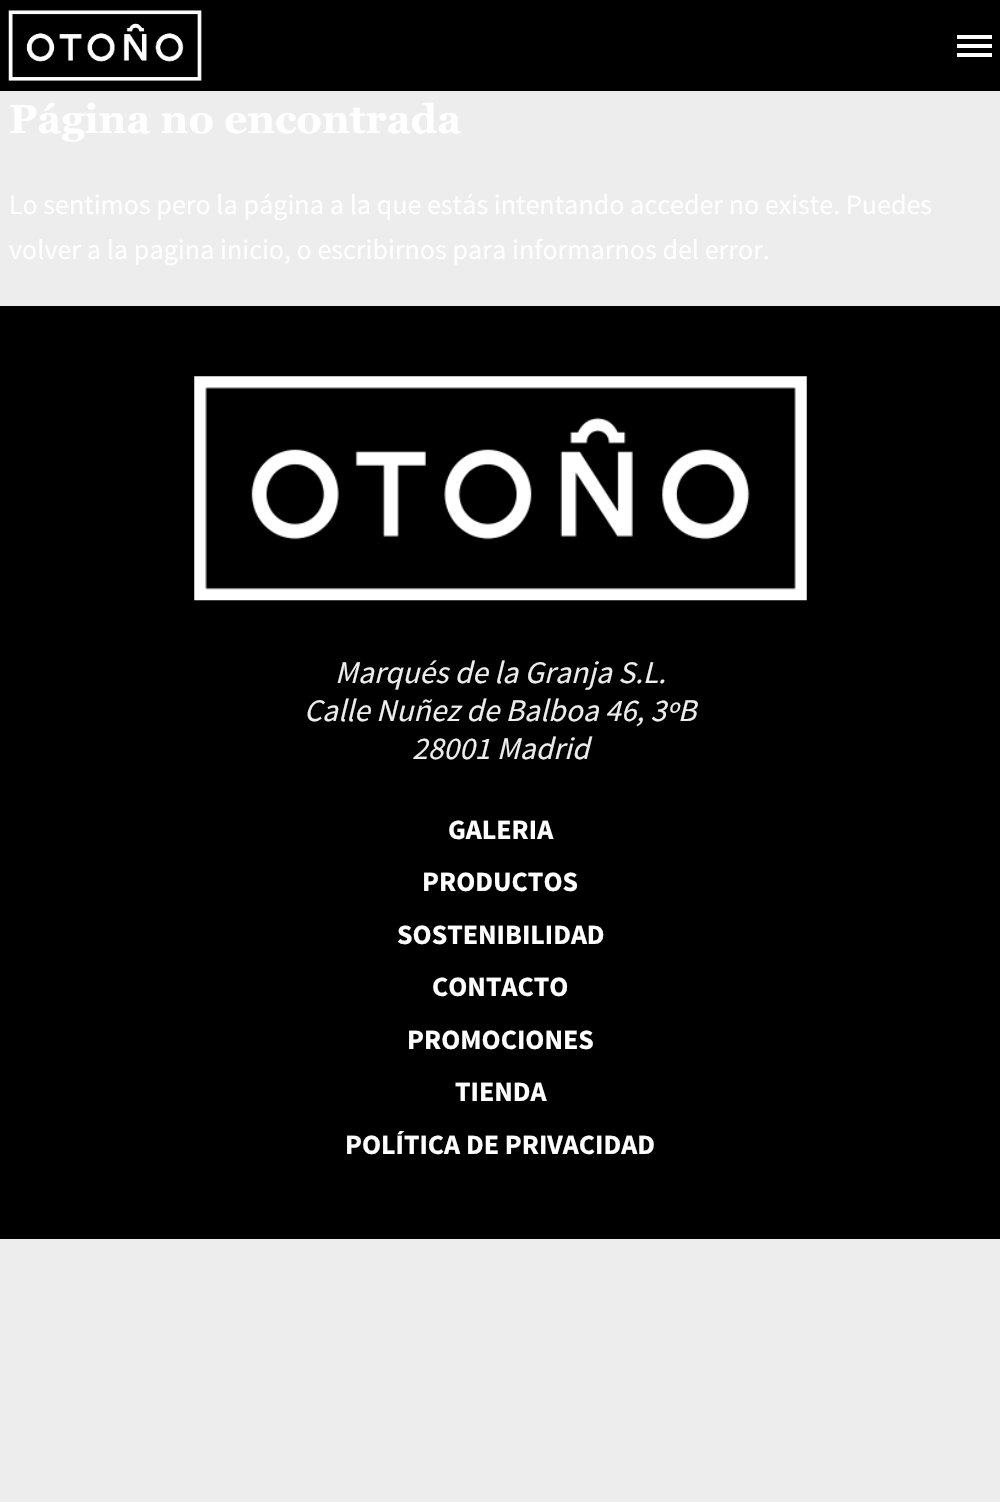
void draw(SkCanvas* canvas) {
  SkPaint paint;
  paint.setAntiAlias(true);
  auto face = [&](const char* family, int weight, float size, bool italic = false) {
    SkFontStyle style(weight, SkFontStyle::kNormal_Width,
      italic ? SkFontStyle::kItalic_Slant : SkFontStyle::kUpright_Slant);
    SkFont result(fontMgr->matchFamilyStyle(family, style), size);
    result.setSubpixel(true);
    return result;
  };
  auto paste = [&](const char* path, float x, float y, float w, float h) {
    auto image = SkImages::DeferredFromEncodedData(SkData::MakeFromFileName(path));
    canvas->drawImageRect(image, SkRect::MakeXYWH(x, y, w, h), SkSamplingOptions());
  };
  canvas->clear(0xffededed);
  paint.setColor(0xff000000);
  canvas->drawRect(SkRect::MakeXYWH(0, 0, 1000, 91), paint);
  paste("img/1.png", 8, 10, 194, 71);
  {
    const struct { float x, y, w, h; SkColor color; } items[] = {
      {957, 44, 35, 4, 0xffffffff},
      {957, 35, 35, 4, 0xffffffff},
      {957, 53, 35, 4, 0xffffffff},
      {0, 306, 1000, 933, 0xff000000},
    };
    for (auto [x, y, w, h, color] : items) {
      paint.setColor(color);
      canvas->drawRect(SkRect::MakeXYWH(x, y, w, h), paint);
    }
  }
  paste("img/2.png", 194, 376, 613, 225);
  auto f0 = face("Georgia", 700, 40.25f);
  paint.setColor(0xffffffff);
  canvas->drawString("Página no encontrada", 9, 133, f0, paint);
  auto f1 = face("Source Sans Pro", 400, 28);
  canvas->drawString("Lo sentimos pero la página a la que estás intentando acceder no existe. Puedes", 9, 214, f1, paint);
  canvas->drawString("volver a la pagina inicio, o escribirnos para informarnos del error.", 9, 259, f1, paint);
  auto f2 = face("Source Sans Pro", 400, 31.5f, true);
  paint.setColor(0xffededed);
  {
    const struct { const char* s; float x, y; } items[] = {
      {"Marqués de la Granja S.L.", 335, 683},
      {"Calle Nuñez de Balboa 46, 3ºB", 304, 721},
      {"28001 Madrid", 412, 759},
    };
    for (auto [s, x, y] : items) {
      canvas->drawString(s, x, y, f2, paint);
    }
  }
  auto f3 = face("Source Sans Pro", 700, 28);
  paint.setColor(0xffffffff);
  {
    const struct { const char* s; float x, y; } items[] = {
      {"GALERIA", 448, 839},
      {"PRODUCTOS", 422, 891},
      {"SOSTENIBILIDAD", 397, 944},
      {"CONTACTO", 432, 996},
      {"PROMOCIONES", 407, 1049},
      {"TIENDA", 455, 1101},
      {"POLÍTICA DE PRIVACIDAD", 345, 1154},
    };
    for (auto [s, x, y] : items) {
      canvas->drawString(s, x, y, f3, paint);
    }
  }
}
